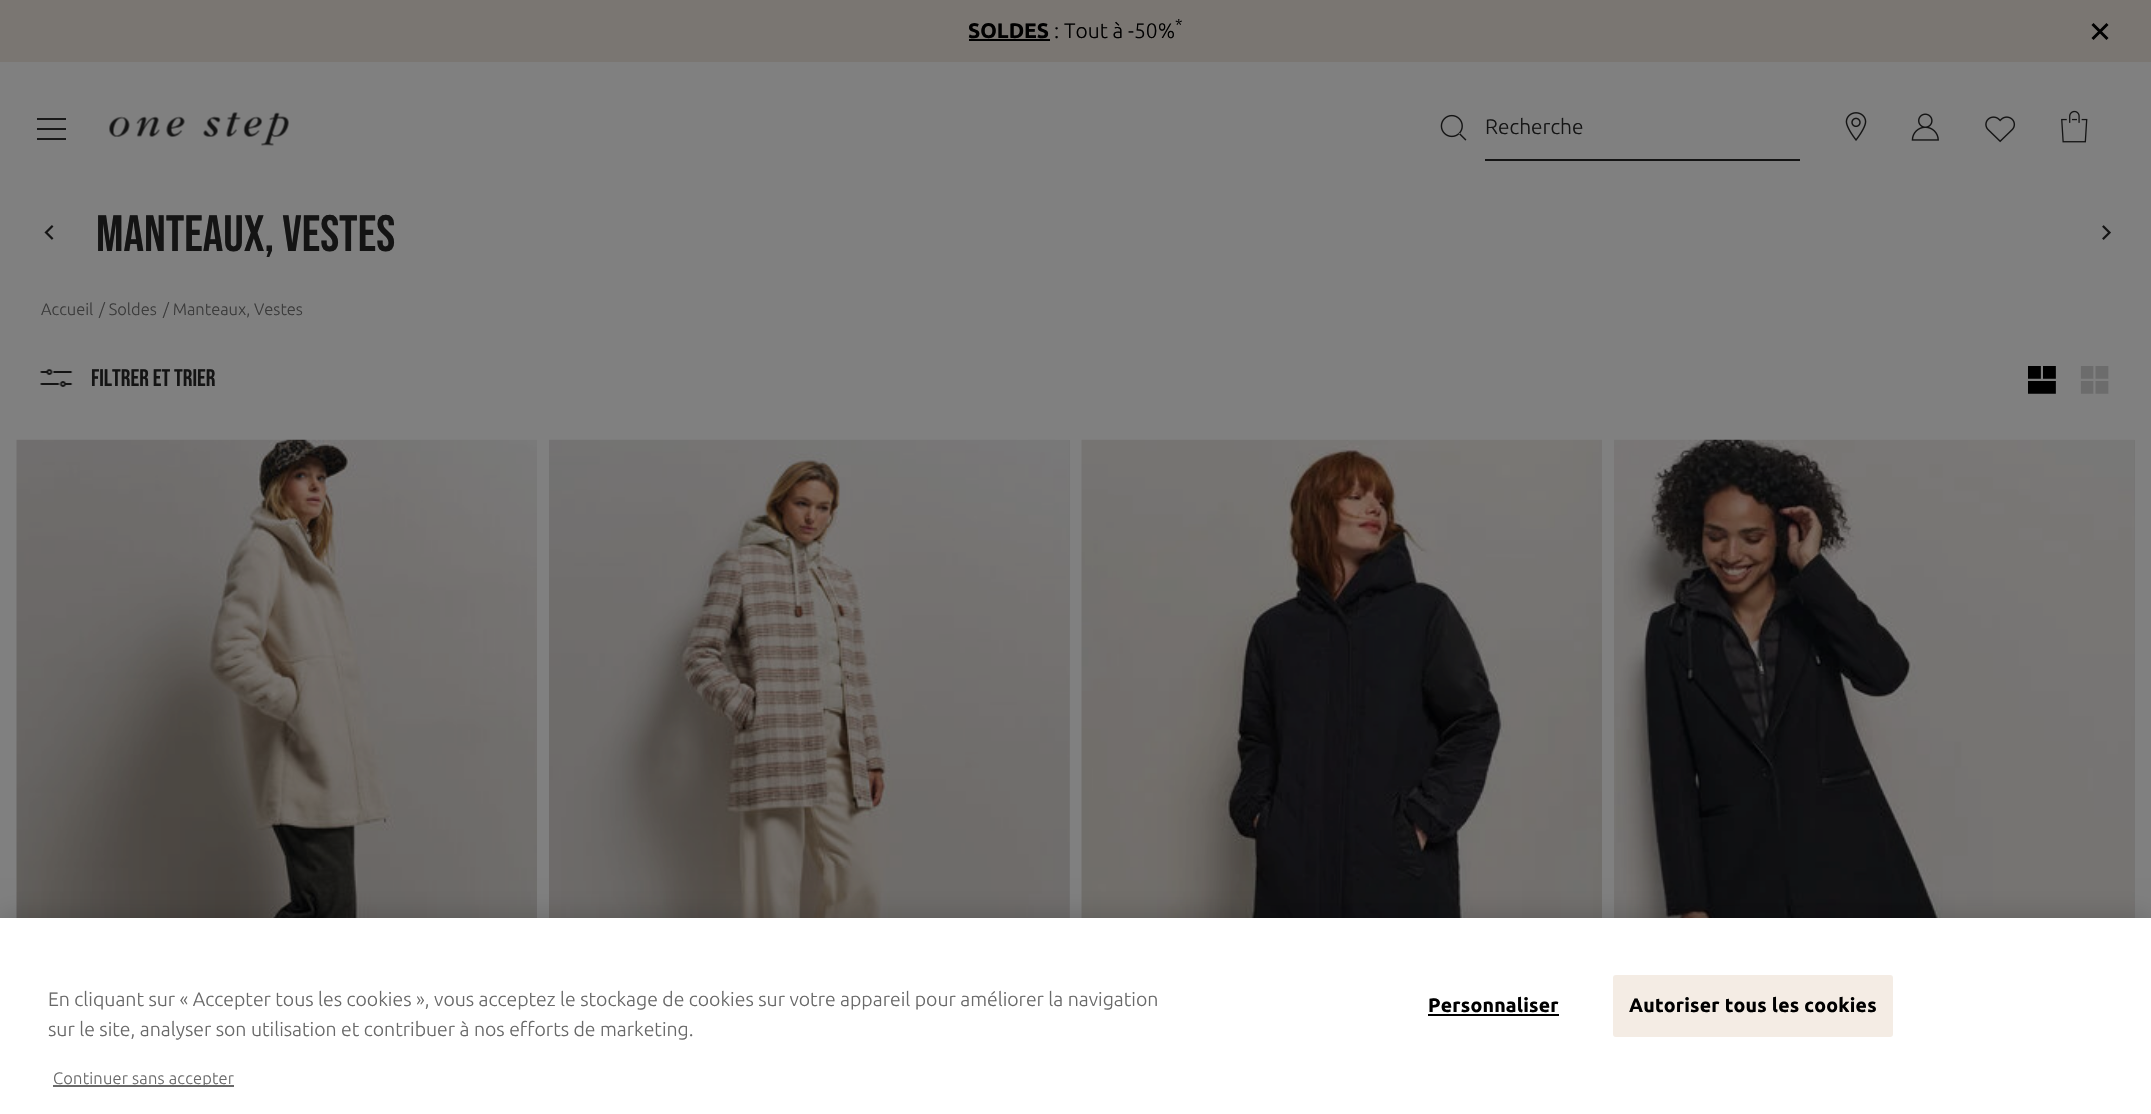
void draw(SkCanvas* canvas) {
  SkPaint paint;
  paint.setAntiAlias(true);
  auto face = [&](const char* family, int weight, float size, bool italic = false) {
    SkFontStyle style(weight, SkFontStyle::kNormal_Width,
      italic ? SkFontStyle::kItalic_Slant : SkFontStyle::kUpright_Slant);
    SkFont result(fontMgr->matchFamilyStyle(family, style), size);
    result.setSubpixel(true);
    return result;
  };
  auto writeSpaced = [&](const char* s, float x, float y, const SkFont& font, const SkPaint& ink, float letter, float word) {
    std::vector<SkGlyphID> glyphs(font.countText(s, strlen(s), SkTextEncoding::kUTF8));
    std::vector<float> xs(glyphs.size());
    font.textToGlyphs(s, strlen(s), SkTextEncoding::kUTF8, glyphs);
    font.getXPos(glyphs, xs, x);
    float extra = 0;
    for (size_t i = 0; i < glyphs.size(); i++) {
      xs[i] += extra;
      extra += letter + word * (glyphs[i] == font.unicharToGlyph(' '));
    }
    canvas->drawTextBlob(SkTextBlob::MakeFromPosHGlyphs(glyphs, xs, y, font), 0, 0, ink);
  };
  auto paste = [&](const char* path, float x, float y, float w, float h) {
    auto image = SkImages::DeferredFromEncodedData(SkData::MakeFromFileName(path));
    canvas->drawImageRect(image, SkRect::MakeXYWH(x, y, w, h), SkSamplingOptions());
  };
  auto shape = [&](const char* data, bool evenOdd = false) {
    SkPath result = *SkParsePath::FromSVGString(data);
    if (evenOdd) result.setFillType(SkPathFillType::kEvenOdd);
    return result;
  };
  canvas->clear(0xff808080);
  paint.setColor(0xff7a7672);
  canvas->drawRect(SkRect::MakeXYWH(0, 0, 2151, 62), paint);
  paint.setColor(0xff000000);
  canvas->drawRect(SkRect::MakeXYWH(969, 39, 81, 2), paint);
  paint.setStroke(true);
  paint.setStrokeWidth(3);
  canvas->drawPath(shape("M2092.5 24L2107.5 39M2107.5 24L2092.5 39"), paint);
  paint.setStroke(false);
  {
    const struct { float x, y, w, h; SkColor color; } items[] = {
      {37, 118, 29, 2, 0xff1a1a1a},
      {37, 128, 29, 2, 0xff1a1a1a},
      {37, 138, 29, 2, 0xff1a1a1a},
    };
    for (auto [x, y, w, h, color] : items) {
      paint.setColor(color);
      canvas->drawRect(SkRect::MakeXYWH(x, y, w, h), paint);
    }
  }
  paste("img/1.png", 109, 112, 180, 34);
  paste("img/2.png", 1440, 114, 27, 27);
  paint.setColor(0xff141414);
  canvas->drawRect(SkRect::MakeXYWH(1485, 159, 315, 2), paint);
  paste("img/3.png", 1845, 112, 22, 29);
  paste("img/4.png", 1911, 113, 28, 28);
  paste("img/5.png", 1985, 116, 31, 27);
  paste("img/6.png", 2061, 110, 27, 33);
  paste("img/7.png", 44, 225, 10, 15);
  paste("img/8.png", 2102, 225, 9, 15);
  paste("img/9.png", 40, 369, 33, 18);
  paste("img/10.png", 2028, 366, 28, 28);
  paste("img/11.png", 2080, 366, 29, 28);
  paste("img/12.png", 16, 439, 521, 479);
  paint.setColor(0xff747474);
  canvas->drawRect(SkRect::MakeXYWH(1069, 440, 1, 478), paint);
  paste("img/13.png", 549, 439, 521, 479);
  paste("img/14.png", 1081, 439, 521, 479);
  canvas->drawRect(SkRect::MakeXYWH(2134, 440, 1, 478), paint);
  paste("img/15.png", 1614, 439, 521, 479);
  paint.setColor(0x33000000);
  paint.setMaskFilter(SkMaskFilter::MakeBlur(kNormal_SkBlurStyle, 13.5f));
  canvas->drawRect(SkRect::MakeXYWH(0, 918, 2151, 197), paint);
  paint.setMaskFilter(nullptr);
  paint.setColor(0xffffffff);
  canvas->drawRect(SkRect::MakeXYWH(0, 918, 2151, 196), paint);
  paint.setColor(0xff000000);
  canvas->drawRect(SkRect::MakeXYWH(1428, 1014, 131, 2), paint);
  paint.setColor(0xfff4ece4);
  canvas->drawRoundRect(SkRect::MakeXYWH(1614, 976, 278, 60), 2, 2, paint);
  paint.setStroke(true);
  paint.setStrokeWidth(2);
  canvas->drawRoundRect(SkRect::MakeXYWH(1614, 976, 278, 60), 2, 2, paint);
  paint.setStroke(false);
  paint.setColor(0xff696969);
  canvas->drawRect(SkRect::MakeXYWH(53, 1085, 181, 2), paint);
  auto f0 = face("Ubuntu", 700, 21);
  paint.setColor(0xff000000);
  canvas->drawString("SOLDES", 968, 38, f0, paint);
  auto f1 = face("Ubuntu", 300, 21);
  canvas->drawString(": Tout à -50%", 1054, 38, f1, paint);
  auto f2 = face("Ubuntu", 300, 16);
  canvas->drawString("*", 1175, 30, f2, paint);
  paint.setColor(0xff141414);
  canvas->drawString("Recherche", 1485, 134, f1, paint);
  auto f3 = face("Bebas Neue", 400, 51);
  canvas->drawString("MANTEAUX, VESTES", 96, 251, f3, paint);
  auto f4 = face("Ubuntu", 300, 16.5f);
  paint.setColor(0xff3b3b3b);
  {
    const struct { const char* s; float x, y; } items[] = {
      {"Accueil", 41, 315},
      {"/ Soldes", 99, 315},
      {"/ Manteaux, Vestes", 163, 315},
    };
    for (auto [s, x, y] : items) {
      canvas->drawString(s, x, y, f4, paint);
    }
  }
  auto f5 = face("Bebas Neue", 400, 24);
  paint.setColor(0xff141414);
  canvas->drawString("FILTRER ET TRIER", 91, 386, f5, paint);
  auto f6 = face("Ubuntu", 300, 19.5f);
  paint.setColor(0xff696969);
  canvas->drawString("En cliquant sur « Accepter tous les cookies », vous acceptez le stockage de cookies sur votre appareil pour améliorer la navigation", 48, 1006, f6, paint);
  canvas->drawString("sur le site, analyser son utilisation et contribuer à nos efforts de marketing.", 48, 1036, f6, paint);
  auto f7 = face("Ubuntu", 700, 19.5f);
  paint.setColor(0xff000000);
  writeSpaced("Personnaliser", 1428, 1012, f7, paint, 0.2f, 0);
  writeSpaced("Autoriser tous les cookies", 1629, 1012, f7, paint, 0.2f, 0);
  paint.setColor(0xff696969);
  writeSpaced("Continuer sans accepter", 53, 1084, f4, paint, 0.2f, 0);
}
